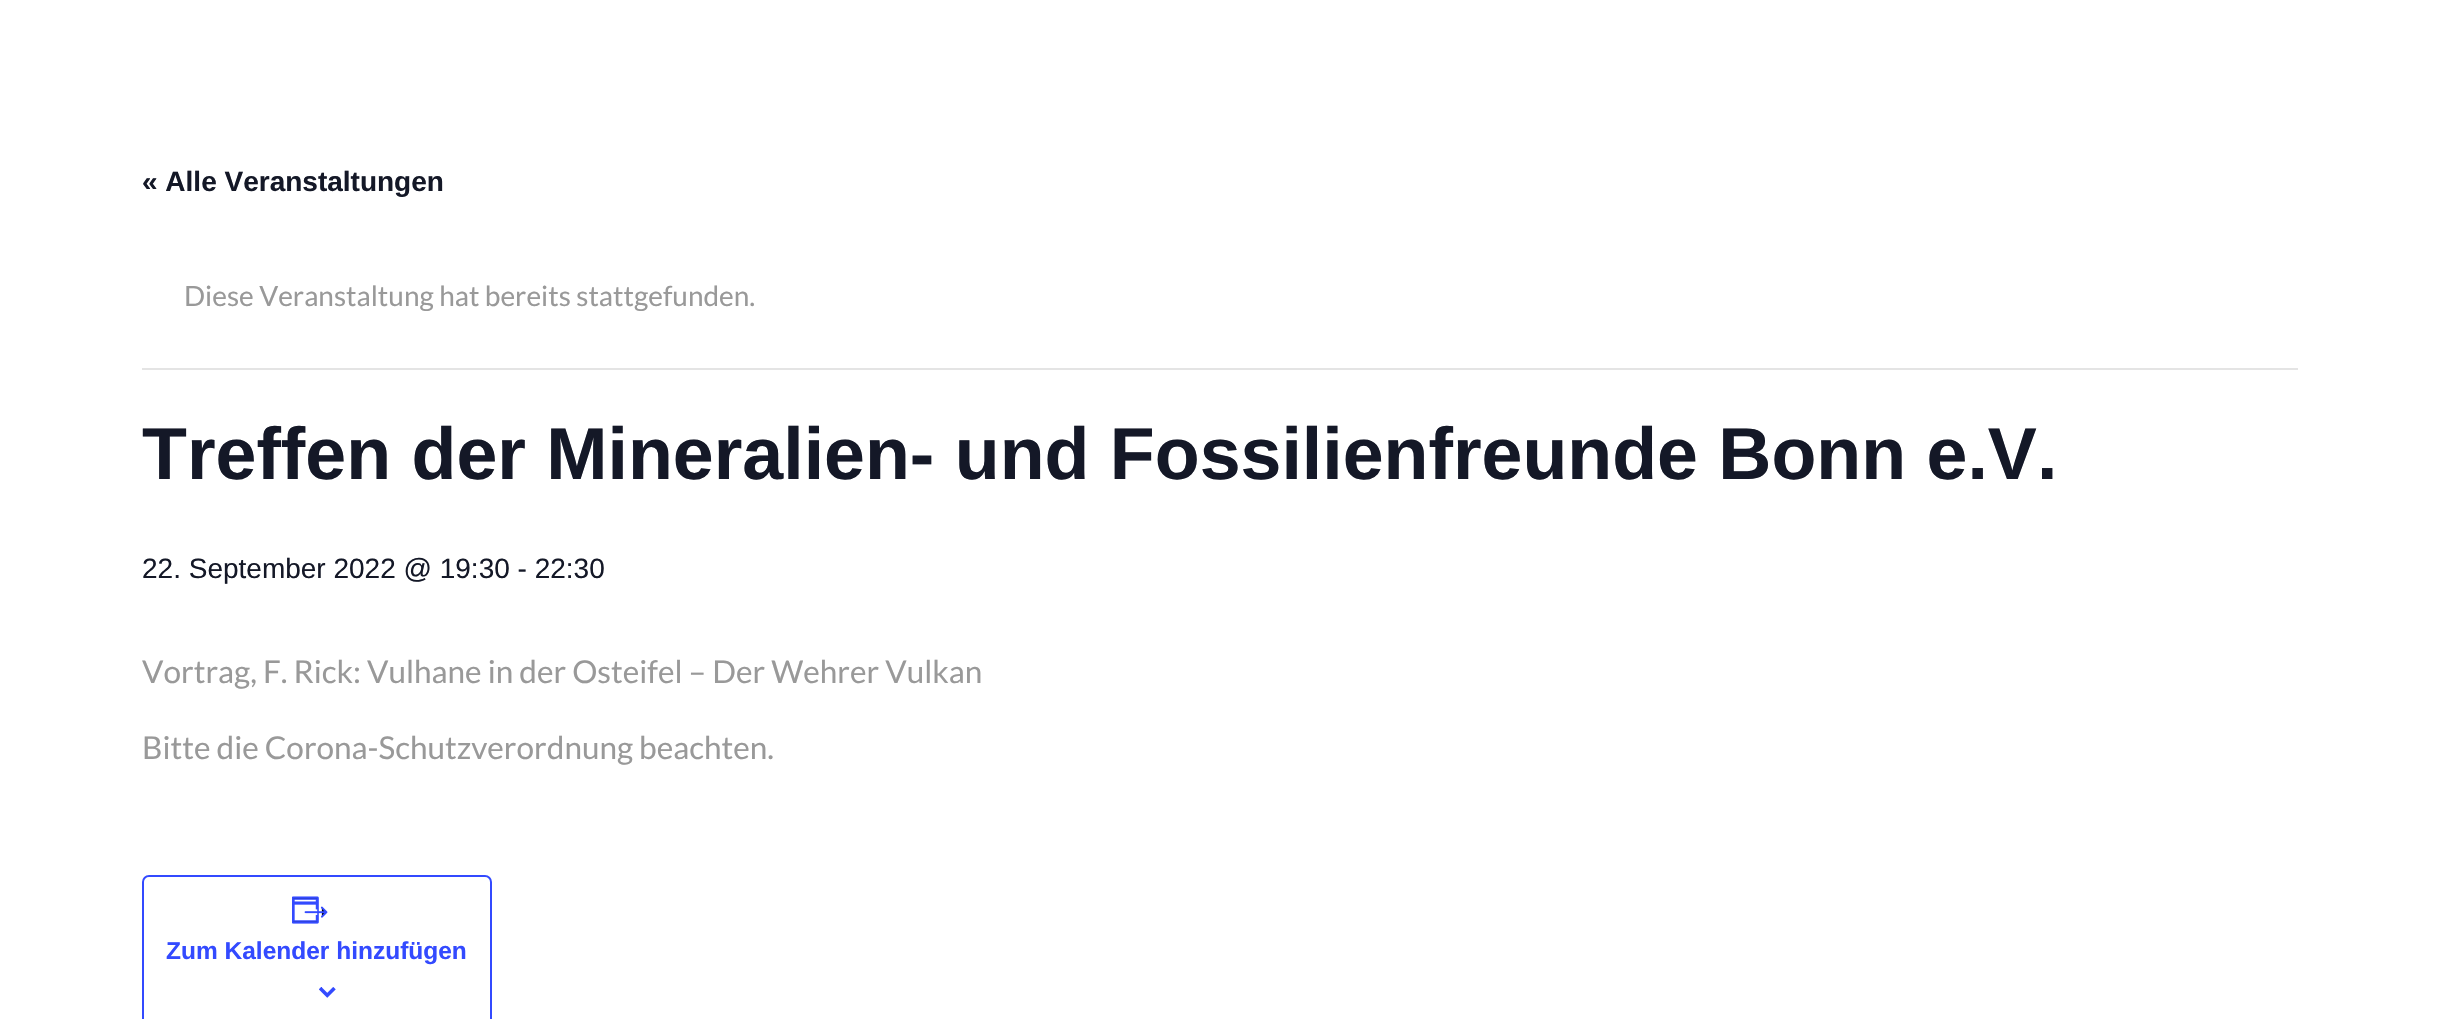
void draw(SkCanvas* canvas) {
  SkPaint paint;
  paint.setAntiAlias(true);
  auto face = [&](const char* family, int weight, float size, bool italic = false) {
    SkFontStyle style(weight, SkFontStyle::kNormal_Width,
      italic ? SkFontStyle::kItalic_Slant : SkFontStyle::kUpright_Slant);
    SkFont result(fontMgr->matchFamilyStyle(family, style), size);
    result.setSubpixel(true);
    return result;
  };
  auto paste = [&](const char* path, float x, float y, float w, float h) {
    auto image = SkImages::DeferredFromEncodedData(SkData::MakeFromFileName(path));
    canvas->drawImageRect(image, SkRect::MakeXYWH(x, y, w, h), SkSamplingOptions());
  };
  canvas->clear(0xffffffff);
  paint.setColor(0xffe4e4e4);
  canvas->drawRect(SkRect::MakeXYWH(142, 368, 2156, 2), paint);
  paint.setStroke(true);
  paint.setStrokeWidth(2);
  paint.setColor(0xff334aff);
  canvas->drawRoundRect(SkRect::MakeXYWH(143, 876, 348, 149), 6, 6, paint);
  paste("img/1.png", 292, 896, 36, 28);
  paste("img/2.png", 319, 987, 17, 11);
  auto f0 = face("Liberation Sans", 700, 28);
  paint.setStroke(false);
  paint.setColor(0xff141827);
  canvas->drawString("« Alle Veranstaltungen", 142, 191, f0, paint);
  auto f1 = face("Lato", 400, 28);
  paint.setColor(0xff999999);
  canvas->drawString("Diese Veranstaltung hat bereits stattgefunden.", 184, 306, f1, paint);
  auto f2 = face("Liberation Sans", 700, 73.5f);
  paint.setColor(0xff141827);
  canvas->drawString("Treffen der Mineralien- und Fossilienfreunde Bonn e.V.", 142, 479, f2, paint);
  auto f3 = face("Liberation Sans", 400, 28);
  canvas->drawString("22. September 2022 @ 19:30 - 22:30", 142, 578, f3, paint);
  auto f4 = face("Lato", 400, 31.5f);
  paint.setColor(0xff999999);
  canvas->drawString("Vortrag, F. Rick: Vulhane in der Osteifel – Der Wehrer Vulkan", 142, 683, f4, paint);
  canvas->drawString("Bitte die Corona-Schutzverordnung beachten.", 142, 759, f4, paint);
  auto f5 = face("Liberation Sans", 700, 24.5f);
  paint.setColor(0xff334aff);
  canvas->drawString("Zum Kalender hinzufügen", 166, 959, f5, paint);
}
